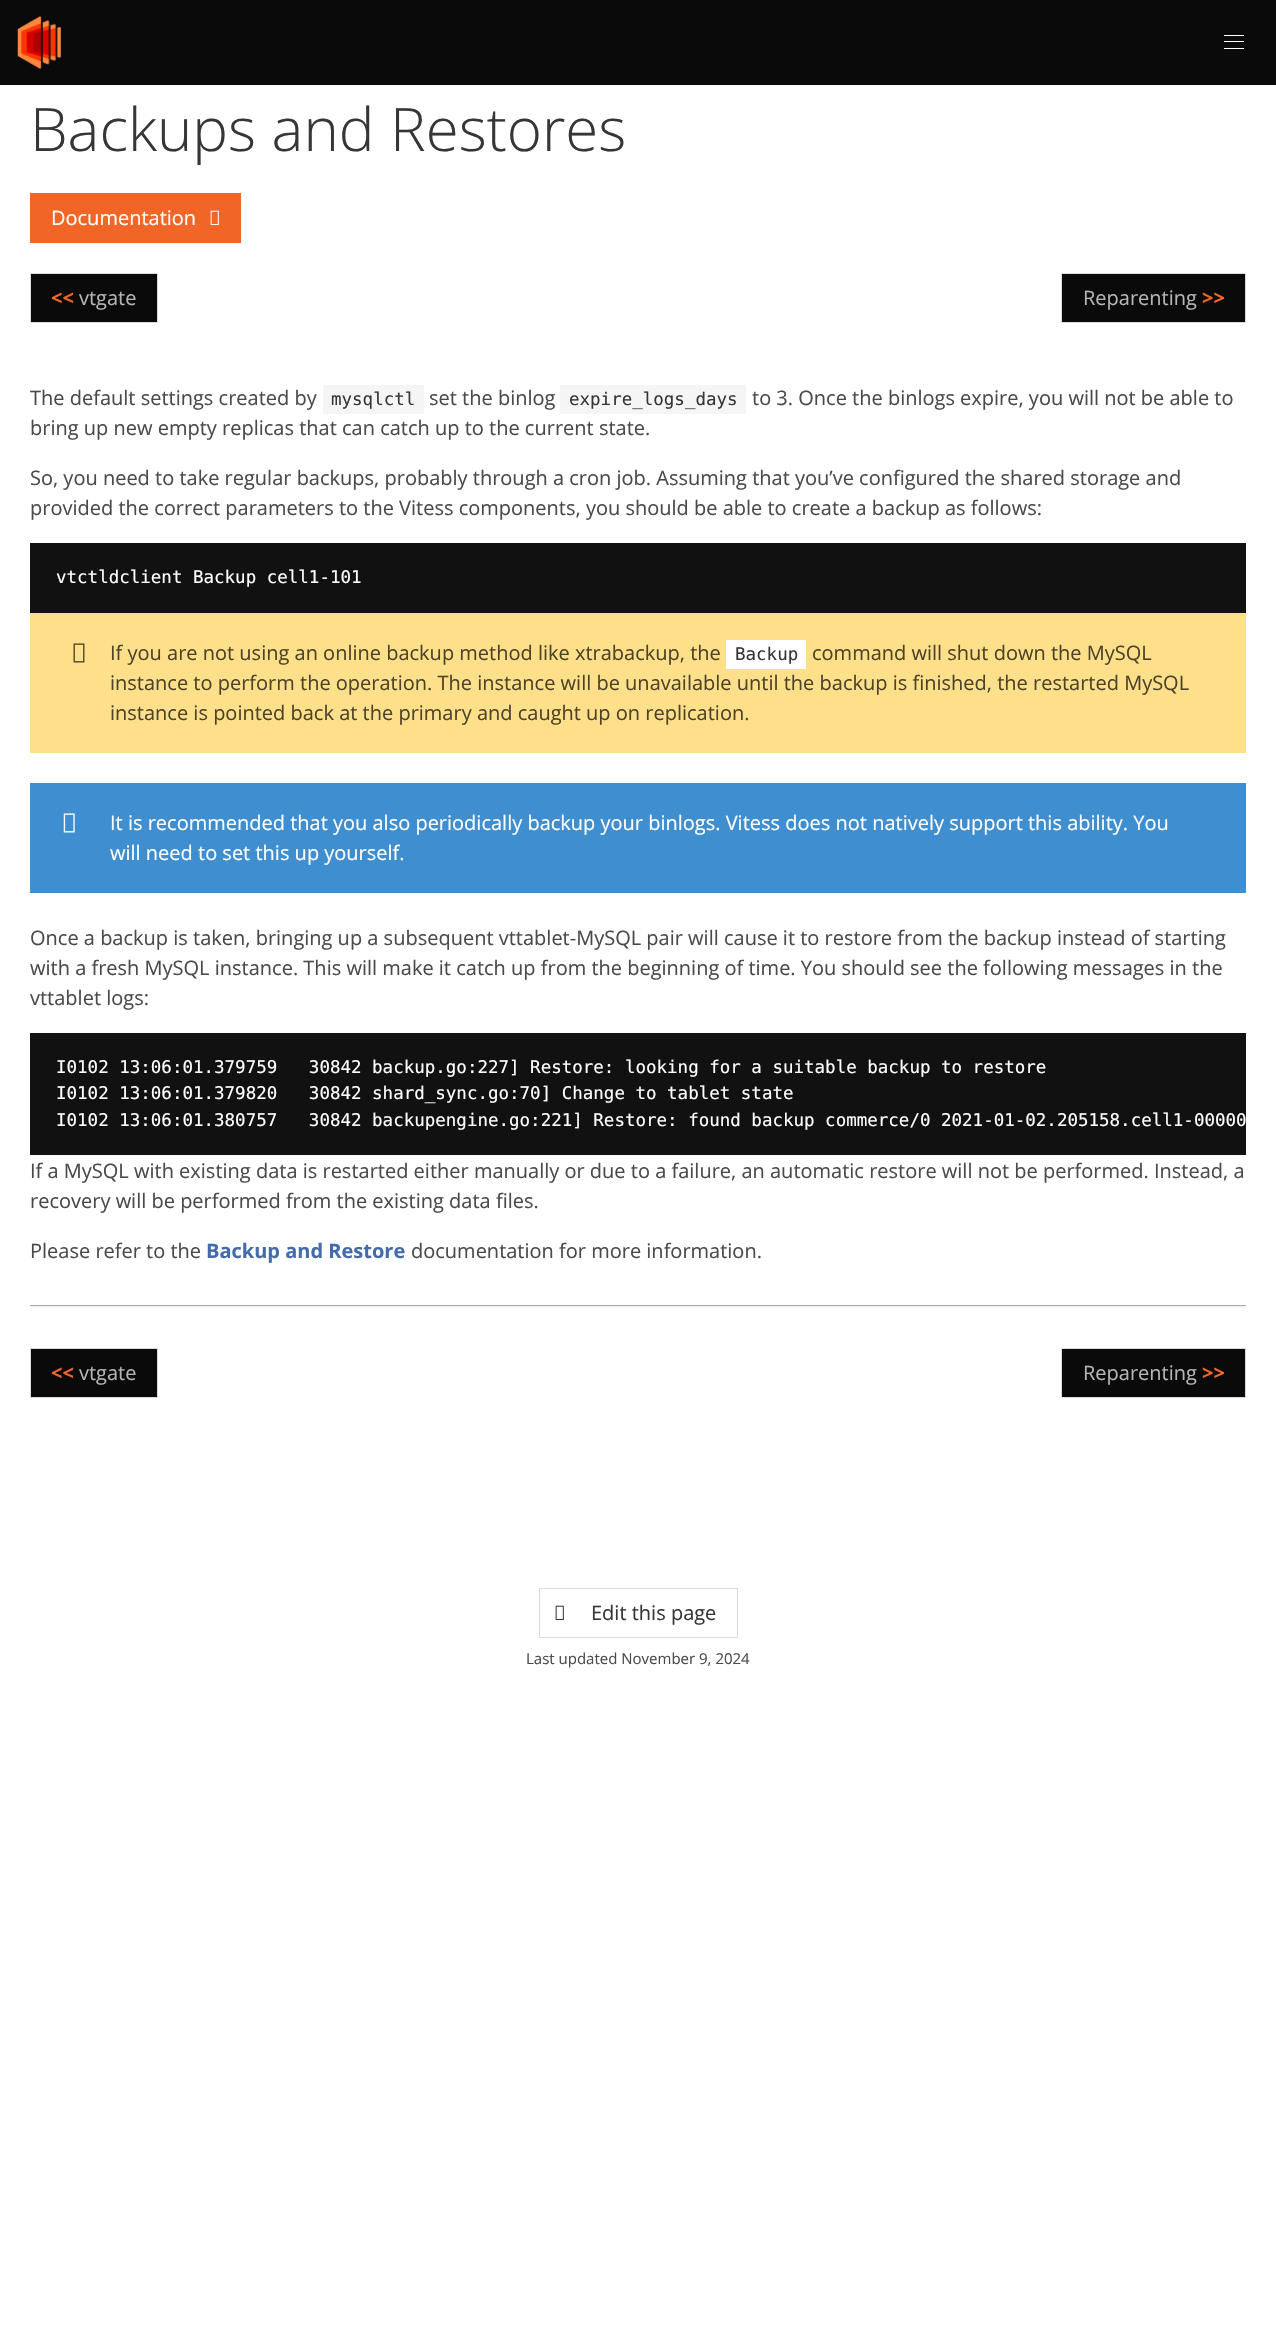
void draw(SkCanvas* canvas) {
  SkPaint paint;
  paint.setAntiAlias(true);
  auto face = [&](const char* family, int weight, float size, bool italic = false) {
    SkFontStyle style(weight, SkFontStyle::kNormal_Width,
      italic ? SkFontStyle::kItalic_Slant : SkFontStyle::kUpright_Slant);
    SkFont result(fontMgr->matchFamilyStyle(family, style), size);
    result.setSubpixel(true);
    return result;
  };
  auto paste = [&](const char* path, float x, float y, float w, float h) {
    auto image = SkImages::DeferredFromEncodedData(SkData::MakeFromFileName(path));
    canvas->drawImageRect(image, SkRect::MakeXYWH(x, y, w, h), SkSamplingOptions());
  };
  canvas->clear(0xffffffff);
  paint.setColor(0xff0a0a0a);
  canvas->drawRect(SkRect::MakeXYWH(0, 0, 1276, 85), paint);
  paste("img/1.png", 17, 16, 45, 53);
  {
    const struct { float x, y, w, h; SkColor color; } items[] = {
      {1224, 35, 20, 1, 0xffffffff},
      {1224, 41, 20, 1, 0xffffffff},
      {1224, 48, 20, 1, 0xffffffff},
      {30, 193, 211, 50, 0xfff16626},
    };
    for (auto [x, y, w, h, color] : items) {
      paint.setColor(color);
      canvas->drawRect(SkRect::MakeXYWH(x, y, w, h), paint);
    }
  }
  paste("img/2.png", 210, 210, 9, 15);
  paint.setColor(0xff0a0a0a);
  canvas->drawRect(SkRect::MakeXYWH(30.5f, 273.5f, 127, 49), paint);
  paint.setStroke(true);
  paint.setStrokeWidth(1);
  paint.setColor(0xffdbdbdb);
  canvas->drawRect(SkRect::MakeXYWH(30.5f, 273.5f, 127, 49), paint);
  paint.setStroke(false);
  paint.setColor(0xff0a0a0a);
  canvas->drawRect(SkRect::MakeXYWH(1061.5f, 273.5f, 184, 49), paint);
  paint.setStroke(true);
  paint.setColor(0xffdbdbdb);
  canvas->drawRect(SkRect::MakeXYWH(1061.5f, 273.5f, 184, 49), paint);
  paint.setStroke(false);
  {
    const struct { float x, y, w, h; SkColor color; } items[] = {
      {323, 385, 101, 29, 0xfff5f5f5},
      {560, 385, 186, 29, 0xfff5f5f5},
      {30, 543, 1216, 70, 0xff111111},
      {30, 613, 1216, 140, 0xffffe08a},
    };
    for (auto [x, y, w, h, color] : items) {
      paint.setColor(color);
      canvas->drawRect(SkRect::MakeXYWH(x, y, w, h), paint);
    }
  }
  paste("img/3.png", 73, 643, 12, 20);
  paint.setColor(0xffffffff);
  canvas->drawRect(SkRect::MakeXYWH(726, 640, 80, 29), paint);
  paint.setColor(0xff3e8ed0);
  canvas->drawRect(SkRect::MakeXYWH(30, 783, 1216, 110), paint);
  paste("img/4.png", 63, 813, 12, 20);
  {
    const struct { float x, y, w, h; SkColor color; } items[] = {
      {30, 1033, 1216, 122, 0xff111111},
      {30, 1306, 1216, 2, 0xfff5f5f5},
      {30, 1305, 1216, 1, 0xffa9a9a9},
    };
    for (auto [x, y, w, h, color] : items) {
      paint.setColor(color);
      canvas->drawRect(SkRect::MakeXYWH(x, y, w, h), paint);
    }
  }
  paint.setColor(0xff0a0a0a);
  canvas->drawRect(SkRect::MakeXYWH(30.5f, 1348.5f, 127, 49), paint);
  paint.setStroke(true);
  paint.setColor(0xffdbdbdb);
  canvas->drawRect(SkRect::MakeXYWH(30.5f, 1348.5f, 127, 49), paint);
  paint.setStroke(false);
  paint.setColor(0xff0a0a0a);
  canvas->drawRect(SkRect::MakeXYWH(1061.5f, 1348.5f, 184, 49), paint);
  paint.setStroke(true);
  paint.setColor(0xffdbdbdb);
  canvas->drawRect(SkRect::MakeXYWH(1061.5f, 1348.5f, 184, 49), paint);
  canvas->drawRect(SkRect::MakeXYWH(539.5f, 1588.5f, 198, 49), paint);
  paste("img/5.png", 555, 1605, 9, 15);
  auto f0 = face("Open Sans", 300, 60);
  paint.setStroke(false);
  paint.setColor(0xff363636);
  canvas->drawString("Backups and Restores", 30, 151, f0, paint);
  auto f1 = face("Open Sans", 400, 20);
  paint.setColor(0xffffffff);
  canvas->drawString("Documentation", 51, 225, f1, paint);
  auto f2 = face("Open Sans", 700, 20);
  paint.setColor(0xfff16626);
  canvas->drawString("<<", 51, 305, f2, paint);
  paint.setColor(0xffb5b5b5);
  canvas->drawString("vtgate", 79, 305, f1, paint);
  canvas->drawString("Reparenting", 1083, 305, f1, paint);
  paint.setColor(0xfff16626);
  canvas->drawString(">>", 1202, 305, f2, paint);
  paint.setColor(0xff4a4a4a);
  canvas->drawString("The default settings created by", 30, 405, f1, paint);
  auto f3 = face("DejaVu Sans Mono", 400, 17.5f);
  paint.setColor(0xff363636);
  canvas->drawString("mysqlctl", 331, 405, f3, paint);
  paint.setColor(0xff4a4a4a);
  canvas->drawString("set the binlog", 429, 405, f1, paint);
  paint.setColor(0xff363636);
  canvas->drawString("expire_logs_days", 569, 405, f3, paint);
  paint.setColor(0xff4a4a4a);
  {
    const struct { const char* s; float x, y; } items[] = {
      {"to 3. Once the binlogs expire, you will not be able to", 752, 405},
      {"bring up new empty replicas that can catch up to the current state.", 30, 435},
      {"So, you need to take regular backups, probably through a cron job. Assuming that you’ve configured the shared storage and", 30, 485},
      {"provided the correct parameters to the Vitess components, you should be able to create a backup as follows:", 30, 515},
    };
    for (auto [s, x, y] : items) {
      canvas->drawString(s, x, y, f1, paint);
    }
  }
  paint.setColor(0xffffffff);
  canvas->drawString("vtctldclient Backup cell1-101", 56, 583, f3, paint);
  paint.setColor(0xff4d4329);
  canvas->drawString("If you are not using an online backup method like xtrabackup, the", 110, 660, f1, paint);
  paint.setColor(0xff363636);
  canvas->drawString("Backup", 735, 660, f3, paint);
  paint.setColor(0xff4d4329);
  {
    const struct { const char* s; float x, y; } items[] = {
      {"command will shut down the MySQL", 812, 660},
      {"instance to perform the operation. The instance will be unavailable until the backup is finished, the restarted MySQL", 110, 690},
      {"instance is pointed back at the primary and caught up on replication.", 110, 720},
    };
    for (auto [s, x, y] : items) {
      canvas->drawString(s, x, y, f1, paint);
    }
  }
  paint.setColor(0xffffffff);
  canvas->drawString("It is recommended that you also periodically backup your binlogs. Vitess does not natively support this ability. You", 110, 830, f1, paint);
  canvas->drawString("will need to set this up yourself.", 110, 860, f1, paint);
  paint.setColor(0xff4a4a4a);
  {
    const struct { const char* s; float x, y; } items[] = {
      {"Once a backup is taken, bringing up a subsequent vttablet-MySQL pair will cause it to restore from the backup instead of starting", 30, 945},
      {"with a fresh MySQL instance. This will make it catch up from the beginning of time. You should see the following messages in the", 30, 975},
      {"vttablet logs:", 30, 1005},
    };
    for (auto [s, x, y] : items) {
      canvas->drawString(s, x, y, f1, paint);
    }
  }
  paint.setColor(0xffffffff);
  {
    const struct { const char* s; float x, y; } items[] = {
      {"I0102 13:06:01.379759   30842 backup.go:227] Restore: looking for a suitable backup to restore", 56, 1073},
      {"I0102 13:06:01.379820   30842 shard_sync.go:70] Change to tablet state", 56, 1099},
      {"I0102 13:06:01.380757   30842 backupengine.go:221] Restore: found backup commerce/0 2021-01-02.205158.cell1-00000", 56, 1126},
    };
    for (auto [s, x, y] : items) {
      canvas->drawString(s, x, y, f3, paint);
    }
  }
  paint.setColor(0xff4a4a4a);
  {
    const struct { const char* s; float x, y; } items[] = {
      {"If a MySQL with existing data is restarted either manually or due to a failure, an automatic restore will not be performed. Instead, a", 30, 1178},
      {"recovery will be performed from the existing data files.", 30, 1208},
      {"Please refer to the", 30, 1258},
    };
    for (auto [s, x, y] : items) {
      canvas->drawString(s, x, y, f1, paint);
    }
  }
  paint.setColor(0xff446ca9);
  canvas->drawString("Backup and Restore", 206, 1258, f2, paint);
  paint.setColor(0xff4a4a4a);
  canvas->drawString("documentation for more information.", 411, 1258, f1, paint);
  paint.setColor(0xfff16626);
  canvas->drawString("<<", 51, 1380, f2, paint);
  paint.setColor(0xffb5b5b5);
  canvas->drawString("vtgate", 79, 1380, f1, paint);
  canvas->drawString("Reparenting", 1083, 1380, f1, paint);
  paint.setColor(0xfff16626);
  canvas->drawString(">>", 1202, 1380, f2, paint);
  paint.setColor(0xff363636);
  canvas->drawString("Edit this page", 591, 1620, f1, paint);
  auto f4 = face("Open Sans", 400, 15);
  paint.setColor(0xff4a4a4a);
  canvas->drawString("Last updated November 9, 2024", 526, 1664, f4, paint);
}
